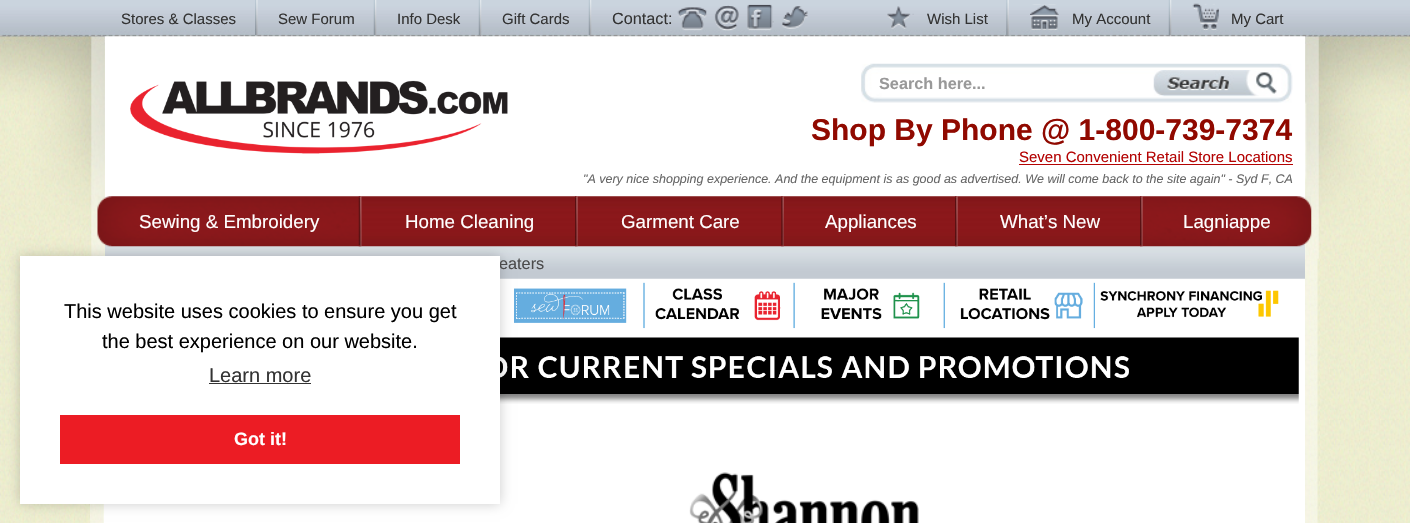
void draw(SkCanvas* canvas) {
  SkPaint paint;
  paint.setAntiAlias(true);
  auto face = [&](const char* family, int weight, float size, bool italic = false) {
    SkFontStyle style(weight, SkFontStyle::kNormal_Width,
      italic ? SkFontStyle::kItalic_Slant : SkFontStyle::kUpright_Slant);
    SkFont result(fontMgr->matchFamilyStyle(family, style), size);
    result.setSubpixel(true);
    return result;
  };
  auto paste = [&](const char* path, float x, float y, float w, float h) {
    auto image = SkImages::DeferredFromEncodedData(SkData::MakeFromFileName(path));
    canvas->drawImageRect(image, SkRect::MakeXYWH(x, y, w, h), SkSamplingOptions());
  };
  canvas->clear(0xffffffff);
  paste("img/15.png", 0, 258, 1410, 265);
  paste("img/16.png", 90, 258, 1230, 265);
  paste("img/17.png", 0, 36, 1410, 223);
  paint.setColor(0xffffffff);
  canvas->drawRect(SkRect::MakeXYWH(105, 36, 1200, 487), paint);
  paste("img/1.png", 0, 0, 1410, 37);
  paste("img/2.png", 255, 0, 3, 35);
  paste("img/3.png", 373, 0, 4, 35);
  paste("img/4.png", 478, 0, 4, 35);
  paste("img/5.png", 588, 0, 4, 35);
  paste("img/6.png", 677, 7, 30, 24);
  paste("img/7.png", 714, 5, 25, 26);
  paste("img/8.png", 747, 4, 27, 27);
  paste("img/9.png", 782, 6, 26, 23);
  paste("img/10.png", 1006, 0, 3, 35);
  paste("img/11.png", 887, 6, 27, 23);
  paste("img/12.png", 1168, 0, 4, 35);
  paste("img/13.png", 1030, 4, 29, 26);
  paste("img/14.png", 1192, 3, 27, 27);
  paste("img/18.png", 130, 80, 378, 74);
  paste("img/19.png", 861, 63, 432, 40);
  paste("img/20.png", 1153, 70, 124, 27);
  paint.setColor(0xffb40303);
  canvas->drawRect(SkRect::MakeXYWH(1019, 164, 274, 1), paint);
  paste("img/30.png", 105, 241, 1200, 38);
  paste("img/21.png", 97, 196, 265, 51);
  paste("img/22.png", 358, 196, 4, 51);
  paste("img/23.png", 361, 196, 217, 51);
  paste("img/24.png", 575, 196, 3, 51);
  paste("img/25.png", 577, 196, 207, 51);
  paste("img/26.png", 781, 196, 3, 51);
  paste("img/27.png", 783, 196, 175, 51);
  paste("img/24.png", 955, 196, 3, 51);
  paste("img/28.png", 957, 196, 186, 51);
  paste("img/24.png", 1140, 196, 3, 51);
  paste("img/29.png", 1142, 196, 170, 51);
  paste("img/31.png", 514, 282, 765, 47);
  paste("img/32.png", 500, 337, 799, 67);
  paste("img/33.png", 689, 472, 230, 51);
  paint.setColor(0x33000000);
  paint.setMaskFilter(SkMaskFilter::MakeBlur(kNormal_SkBlurStyle, 6));
  canvas->drawRect(SkRect::MakeXYWH(20, 256, 480, 248), paint);
  paint.setMaskFilter(nullptr);
  auto f0 = face("Liberation Sans", 400, 15);
  paint.setColor(0xff333333);
  {
    const struct { const char* s; float x, y; } items[] = {
      {"Stores & Classes", 121, 24},
      {"Sew Forum", 278, 24},
      {"Info Desk", 397, 24},
      {"Gift Cards", 502, 24},
    };
    for (auto [s, x, y] : items) {
      canvas->drawString(s, x, y, f0, paint);
    }
  }
  auto f1 = face("Liberation Sans", 400, 16.25f);
  canvas->drawString("Contact:", 612, 24, f1, paint);
  {
    const struct { const char* s; float x, y; } items[] = {
      {"Wish List", 927, 24},
      {"My Account", 1072, 24},
      {"My Cart", 1231, 24},
    };
    for (auto [s, x, y] : items) {
      canvas->drawString(s, x, y, f0, paint);
    }
  }
  auto f2 = face("Liberation Sans", 700, 16.25f);
  paint.setColor(0xff999999);
  canvas->drawString("Search here...", 879, 89, f2, paint);
  auto f3 = face("Liberation Sans", 700, 30);
  paint.setColor(0xff900900);
  canvas->drawString("Shop By Phone @ 1-800-739-7374", 811, 140, f3, paint);
  paint.setColor(0xffb40303);
  canvas->drawString("Seven Convenient Retail Store Locations", 1019, 162, f0, paint);
  auto f4 = face("Liberation Sans", 400, 12.5f, true);
  paint.setColor(0xff666666);
  canvas->drawString("\"A very nice shopping experience. And the equipment is as good as advertised. We will come back to the site again\" - Syd F, CA", 583, 183, f4, paint);
  auto f5 = face("Liberation Sans", 400, 18.75f);
  paint.setColor(0xffffffff);
  {
    const struct { const char* s; float x, y; } items[] = {
      {"Sewing & Embroidery", 139, 228},
      {"Home Cleaning", 405, 228},
      {"Garment Care", 621, 228},
      {"Appliances", 825, 228},
      {"What’s New", 1000, 228},
      {"Lagniappe", 1183, 228},
    };
    for (auto [s, x, y] : items) {
      canvas->drawString(s, x, y, f5, paint);
    }
  }
  paint.setColor(0xff4b4b4b);
  canvas->drawString("eaters", 499, 269, f1, paint);
  paint.setColor(0xffffffff);
  canvas->drawRect(SkRect::MakeXYWH(20, 256, 480, 248), paint);
  auto f6 = face("Liberation Sans", 400, 20);
  paint.setColor(0xff000000);
  canvas->drawString("This website uses cookies to ensure you get", 64, 318, f6, paint);
  canvas->drawString("the best experience on our website.", 102, 348, f6, paint);
  paint.setColor(0xff333333);
  canvas->drawString("Learn more", 209, 382, f6, paint);
  canvas->drawRect(SkRect::MakeXYWH(209, 383, 102, 1), paint);
  paint.setColor(0xffec1c24);
  canvas->drawRect(SkRect::MakeXYWH(60, 415, 400, 49), paint);
  auto f7 = face("Liberation Sans", 700, 18);
  paint.setColor(0xffffffff);
  canvas->drawString("Got it!", 234, 445, f7, paint);
}
